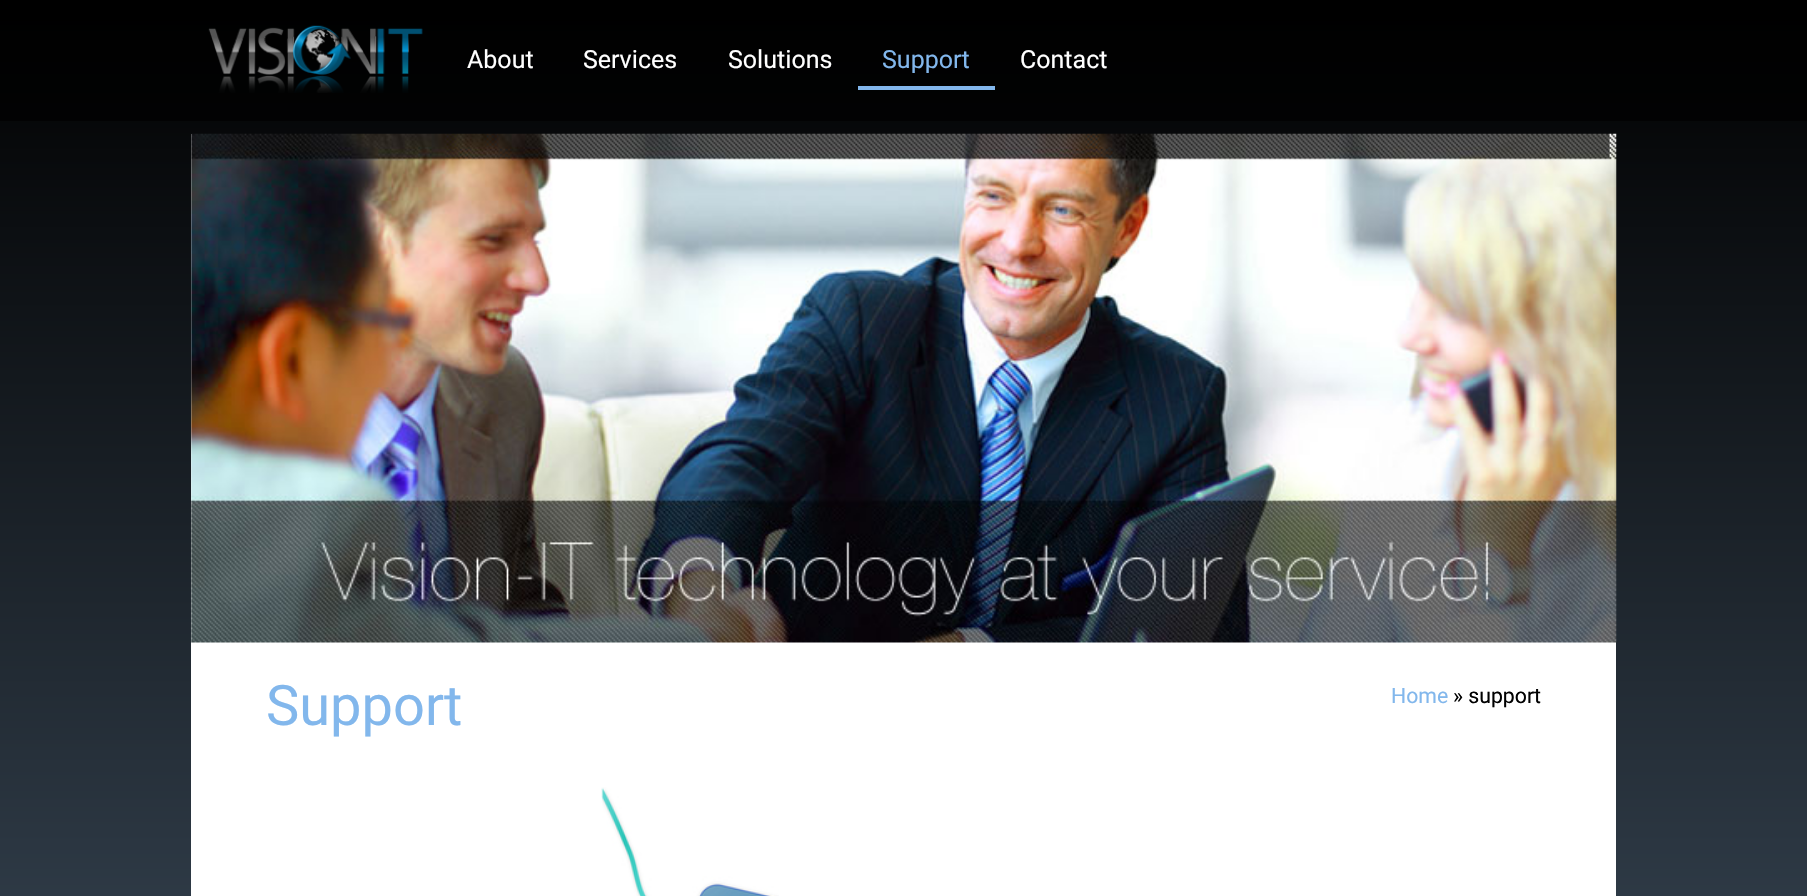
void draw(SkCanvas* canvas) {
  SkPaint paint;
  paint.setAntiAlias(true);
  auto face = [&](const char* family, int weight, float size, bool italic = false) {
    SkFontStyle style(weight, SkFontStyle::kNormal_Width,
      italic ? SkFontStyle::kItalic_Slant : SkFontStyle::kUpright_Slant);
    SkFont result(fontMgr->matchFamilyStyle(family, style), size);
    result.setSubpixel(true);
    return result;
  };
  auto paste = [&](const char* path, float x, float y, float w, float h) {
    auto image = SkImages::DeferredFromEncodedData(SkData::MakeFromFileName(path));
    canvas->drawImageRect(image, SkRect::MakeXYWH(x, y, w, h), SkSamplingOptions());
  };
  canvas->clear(0xffffffff);
  {
    const SkColor colors[] = {0xff000000, 0xff323f4c};
    const float stops[] = {0, 0.65f};
    const SkPoint ends[] = {{904, 0}, {904, 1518}};
    paint.setShader(SkGradientShader::MakeLinear(ends, colors, stops, 2, SkTileMode::kClamp));
    paint.setAlpha(255);
  }
  canvas->drawRect(SkRect::MakeXYWH(0, 121, 1807, 775), paint);
  {
    const SkColor colors[] = {0xff000000, 0xff101418};
    const float stops[] = {0, 0.65f};
    const SkPoint ends[] = {{904, 0}, {904, 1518}};
    paint.setShader(SkGradientShader::MakeLinear(ends, colors, stops, 2, SkTileMode::kClamp));
    paint.setAlpha(255);
  }
  canvas->drawRect(SkRect::MakeXYWH(0, 0, 1807, 121), paint);
  paste("img/1.png", 208, 25, 215, 68);
  paint.setShader(nullptr);
  paint.setColor(0xff82b7ec);
  canvas->drawRect(SkRect::MakeXYWH(858, 86, 137, 4), paint);
  paint.setColor(0xffffffff);
  canvas->drawRect(SkRect::MakeXYWH(191, 134, 1425, 762), paint);
  paste("img/2.png", 191, 133, 1426, 510);
  paste("img/3.png", 601, 787, 178, 109);
  auto f0 = face("Heebo", 400, 25);
  {
    const struct { const char* s; float x, y; } items[] = {
      {"About", 467, 68},
      {"Services", 583, 68},
      {"Solutions", 728, 68},
    };
    for (auto [s, x, y] : items) {
      canvas->drawString(s, x, y, f0, paint);
    }
  }
  paint.setColor(0xff82b7ec);
  canvas->drawString("Support", 882, 68, f0, paint);
  paint.setColor(0xffffffff);
  canvas->drawString("Contact", 1020, 68, f0, paint);
  auto f1 = face("Heebo", 400, 56);
  paint.setColor(0xff82b7ec);
  canvas->drawString("Support", 266, 725, f1, paint);
  auto f2 = face("Heebo", 400, 21.25f);
  canvas->drawString("Home", 1391, 703, f2, paint);
  paint.setColor(0xff000000);
  canvas->drawString("» support", 1453, 703, f2, paint);
}
